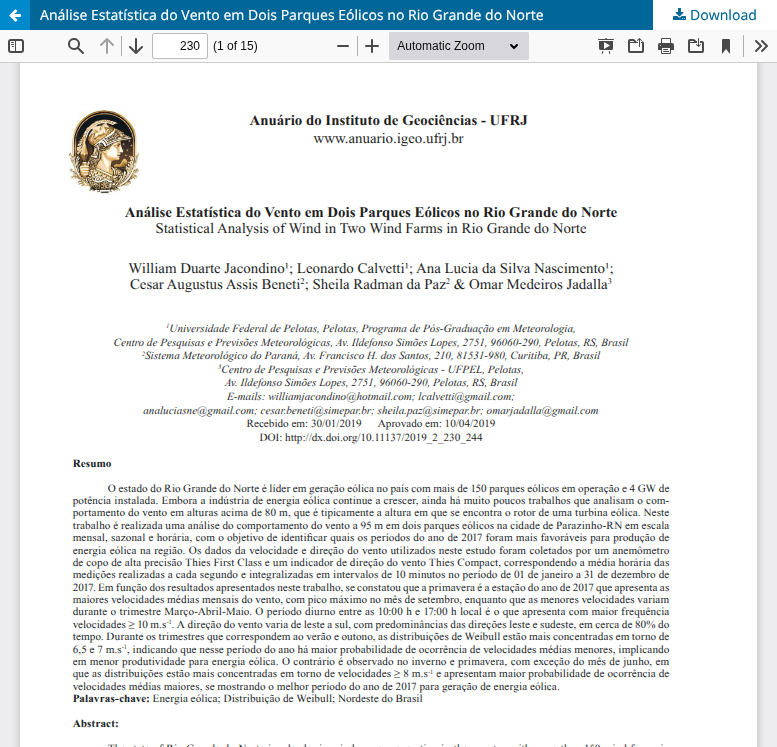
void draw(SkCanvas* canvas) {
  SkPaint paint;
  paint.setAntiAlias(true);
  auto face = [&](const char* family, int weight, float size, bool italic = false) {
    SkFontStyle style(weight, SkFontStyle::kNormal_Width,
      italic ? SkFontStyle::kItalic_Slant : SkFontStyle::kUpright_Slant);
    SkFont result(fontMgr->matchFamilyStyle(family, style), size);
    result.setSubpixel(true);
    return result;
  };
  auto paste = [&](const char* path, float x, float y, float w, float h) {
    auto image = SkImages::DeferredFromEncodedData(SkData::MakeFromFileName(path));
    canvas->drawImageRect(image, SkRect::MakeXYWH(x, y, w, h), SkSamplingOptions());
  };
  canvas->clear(0xffffffff);
  paint.setColor(0xff006798);
  canvas->drawRect(SkRect::MakeXYWH(30, 0, 623, 30), paint);
  paint.setColor(0xff008acb);
  canvas->drawRect(SkRect::MakeXYWH(0, 0, 30, 30), paint);
  paste("img/1.png", 9, 9, 12, 13);
  paste("img/2.png", 673, 8, 13, 12);
  paste("img/3.png", 0, 30, 777, 717);
  auto f0 = face("Noto Sans", 400, 14);
  paint.setColor(0xffffffff);
  canvas->drawString("Análise Estatística do Vento em Dois Parques Eólicos no Rio Grande do Norte", 40, 20, f0, paint);
  paint.setColor(0xff006798);
  canvas->drawString("Download", 690, 20, f0, paint);
}
